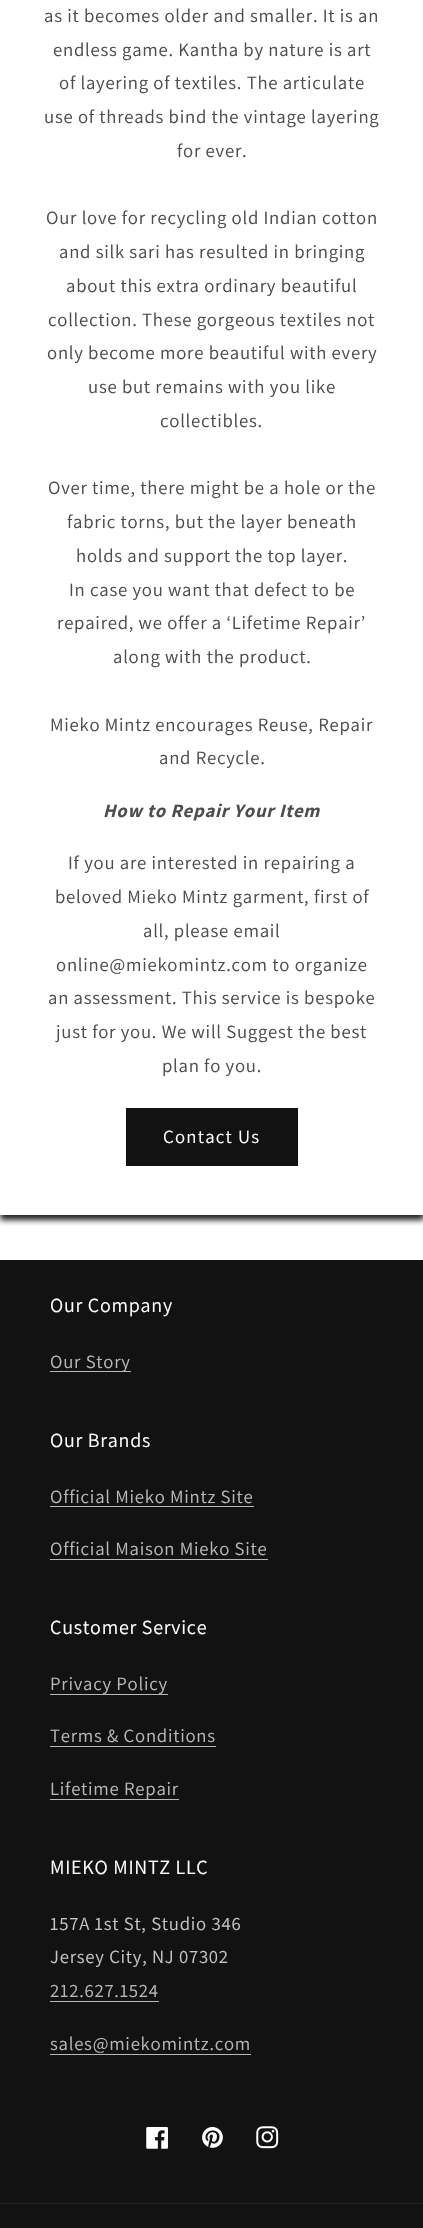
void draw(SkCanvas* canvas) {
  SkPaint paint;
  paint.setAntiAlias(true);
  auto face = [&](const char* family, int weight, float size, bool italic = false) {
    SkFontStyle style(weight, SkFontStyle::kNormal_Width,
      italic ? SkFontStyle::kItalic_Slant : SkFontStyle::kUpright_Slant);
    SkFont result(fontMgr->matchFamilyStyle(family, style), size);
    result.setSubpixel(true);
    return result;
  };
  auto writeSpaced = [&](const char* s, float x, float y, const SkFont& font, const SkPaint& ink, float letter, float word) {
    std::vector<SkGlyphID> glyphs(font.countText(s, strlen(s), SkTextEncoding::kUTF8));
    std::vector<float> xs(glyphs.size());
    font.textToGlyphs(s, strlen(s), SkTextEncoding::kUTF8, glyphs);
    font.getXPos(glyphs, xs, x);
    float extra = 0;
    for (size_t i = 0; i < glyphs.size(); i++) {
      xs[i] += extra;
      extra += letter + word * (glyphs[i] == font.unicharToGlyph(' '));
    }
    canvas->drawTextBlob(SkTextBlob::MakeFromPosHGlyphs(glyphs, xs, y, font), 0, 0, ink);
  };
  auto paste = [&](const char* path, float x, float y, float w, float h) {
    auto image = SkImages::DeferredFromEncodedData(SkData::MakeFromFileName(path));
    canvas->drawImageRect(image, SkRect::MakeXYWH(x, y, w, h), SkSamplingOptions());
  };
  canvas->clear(0xffffffff);
  canvas->save();
  canvas->clipRect(SkRect::MakeXYWH(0, 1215, 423, 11));
  paint.setColor(0xf2121212);
  paint.setMaskFilter(SkMaskFilter::MakeBlur(kNormal_SkBlurStyle, 3));
  canvas->drawRect(SkRect::MakeXYWH(0, -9, 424, 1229), paint);
  paint.setMaskFilter(nullptr);
  canvas->restore();
  {
    const struct { float x, y, w, h; SkColor color; } items[] = {
      {126, 1108, 172, 58, 0xff121212},
      {0, 1260, 423, 968, 0xff121212},
      {50, 1371, 81, 1, 0xffb8b8b8},
      {50, 1506, 204, 1, 0xffb8b8b8},
      {50, 1559, 218, 1, 0xffb8b8b8},
      {50, 1694, 118, 1, 0xffb8b8b8},
      {50, 1746, 166, 1, 0xffb8b8b8},
      {50, 1799, 129, 1, 0xffb8b8b8},
      {50, 2001, 109, 1, 0xffb8b8b8},
      {50, 2054, 201, 1, 0xffb8b8b8},
    };
    for (auto [x, y, w, h, color] : items) {
      paint.setColor(color);
      canvas->drawRect(SkRect::MakeXYWH(x, y, w, h), paint);
    }
  }
  paste("img/1.png", 146, 2127, 22, 22);
  paste("img/2.png", 202, 2127, 21, 21);
  paste("img/3.png", 256, 2126, 23, 23);
  paint.setColor(0xff252525);
  canvas->drawRect(SkRect::MakeXYWH(0, 2203, 423, 1), paint);
  auto f0 = face("Assistant", 400, 18.75f);
  paint.setColor(0xff4d4d4d);
  {
    const struct { const char* s; float x, y; } items[] = {
      {"as it becomes older and smaller. It is an", 44, 22},
      {"endless game. Kantha by nature is art", 53, 56},
      {"of layering of textiles. The articulate", 59, 89},
      {"use of threads bind the vintage layering", 44, 123},
      {"for ever.", 177, 157},
      {"Our love for recycling old Indian cotton", 46, 224},
      {"and silk sari has resulted in bringing", 59, 258},
      {"about this extra ordinary beautiful", 66, 292},
      {"collection. These gorgeous textiles not", 48, 326},
      {"only become more beautiful with every", 47, 359},
      {"use but remains with you like", 88, 393},
      {"collectibles.", 160, 427},
      {"Over time, there might be a hole or the", 48, 494},
      {"fabric torns, but the layer beneath", 67, 528},
      {"holds and support the top layer.", 76, 562},
      {"In case you want that defect to be", 69, 596},
      {"repaired, we offer a ‘Lifetime Repair’", 57, 629},
      {"along with the product.", 113, 663},
      {"Mieko Mintz encourages Reuse, Repair", 50, 731},
      {"and Recycle.", 159, 764},
    };
    for (auto [s, x, y] : items) {
      writeSpaced(s, x, y, f0, paint, 0.75f, 0);
    }
  }
  auto f1 = face("Assistant", 700, 18.75f, true);
  writeSpaced("How to Repair Your Item", 103, 817, f1, paint, 0.75f, 0);
  {
    const struct { const char* s; float x, y; } items[] = {
      {"If you are interested in repairing a", 68, 869},
      {"beloved Mieko Mintz garment, first of", 55, 903},
      {"all, please email", 143, 937},
      {"online@miekomintz.com to organize", 56, 971},
      {"an assessment. This service is bespoke", 48, 1004},
      {"just for you. We will Suggest the best", 56, 1038},
      {"plan fo you.", 162, 1072},
    };
    for (auto [s, x, y] : items) {
      writeSpaced(s, x, y, f0, paint, 0.75f, 0);
    }
  }
  paint.setColor(0xffffffff);
  writeSpaced("Contact Us", 163, 1143, f0, paint, 1.25f, 0);
  auto f2 = face("Assistant", 400, 20);
  writeSpaced("Our Company", 50, 1312, f2, paint, 0.75f, 0);
  paint.setColor(0xffb8b8b8);
  writeSpaced("Our Story", 50, 1368, f0, paint, 0.75f, 0);
  paint.setColor(0xffffffff);
  writeSpaced("Our Brands", 50, 1447, f2, paint, 0.75f, 0);
  paint.setColor(0xffb8b8b8);
  writeSpaced("Official Mieko Mintz Site", 50, 1503, f0, paint, 0.75f, 0);
  writeSpaced("Official Maison Mieko Site", 50, 1555, f0, paint, 0.75f, 0);
  paint.setColor(0xffffffff);
  writeSpaced("Customer Service", 50, 1634, f2, paint, 0.75f, 0);
  paint.setColor(0xffb8b8b8);
  {
    const struct { const char* s; float x, y; } items[] = {
      {"Privacy Policy", 50, 1690},
      {"Terms & Conditions", 50, 1742},
      {"Lifetime Repair", 50, 1795},
    };
    for (auto [s, x, y] : items) {
      writeSpaced(s, x, y, f0, paint, 0.75f, 0);
    }
  }
  paint.setColor(0xffffffff);
  writeSpaced("MIEKO MINTZ LLC", 50, 1874, f2, paint, 0.75f, 0);
  paint.setColor(0xffc4c4c4);
  writeSpaced("157A 1st St, Studio 346", 50, 1930, f0, paint, 0.75f, 0);
  writeSpaced("Jersey City, NJ 07302", 50, 1963, f0, paint, 0.75f, 0);
  paint.setColor(0xffb8b8b8);
  writeSpaced("212.627.1524", 50, 1997, f0, paint, 0.75f, 0);
  writeSpaced("sales@miekomintz.com", 50, 2050, f0, paint, 0.75f, 0);
}
